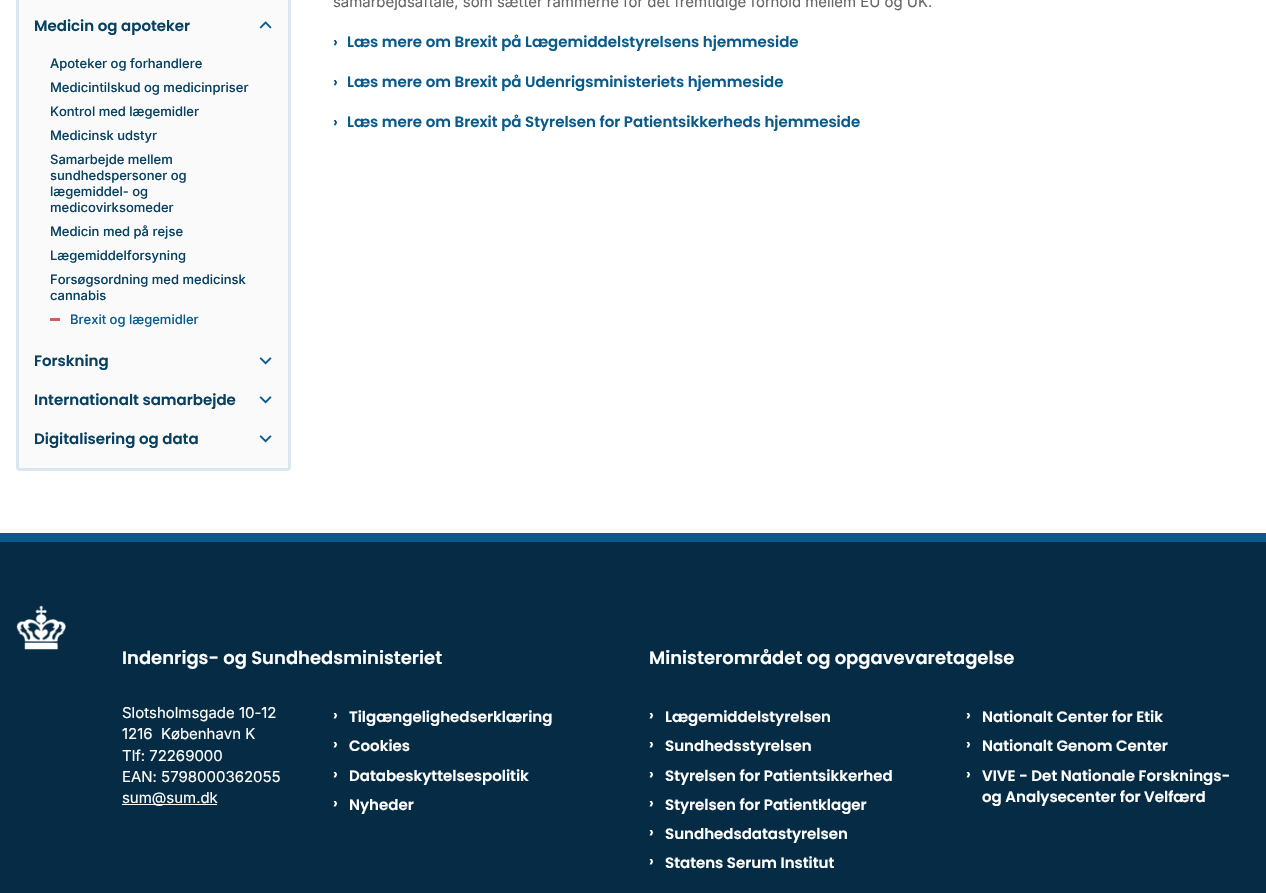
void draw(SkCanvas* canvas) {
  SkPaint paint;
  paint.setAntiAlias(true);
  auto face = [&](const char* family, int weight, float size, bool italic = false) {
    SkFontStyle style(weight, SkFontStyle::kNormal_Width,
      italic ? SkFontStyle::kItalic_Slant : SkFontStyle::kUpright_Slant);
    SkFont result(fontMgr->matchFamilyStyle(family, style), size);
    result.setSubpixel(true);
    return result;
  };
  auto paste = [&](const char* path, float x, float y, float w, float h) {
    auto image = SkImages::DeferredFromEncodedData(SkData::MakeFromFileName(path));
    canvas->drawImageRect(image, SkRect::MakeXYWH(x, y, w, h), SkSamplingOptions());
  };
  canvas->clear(0xffffffff);
  paint.setStroke(true);
  paint.setStrokeWidth(3);
  paint.setColor(0xffdbe7ee);
  canvas->drawRoundRect(SkRect::MakeXYWH(17.5f, -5.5f, 272, 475), 2.5f, 2.5f, paint);
  paint.setStroke(false);
  paint.setColor(0xfffafafa);
  canvas->drawRect(SkRect::MakeXYWH(19, 0, 269, 468), paint);
  paste("img/1.png", 259, 21, 13, 8);
  paint.setColor(0xffc56361);
  canvas->drawRect(SkRect::MakeXYWH(50, 318, 10, 3), paint);
  paste("img/2.png", 259, 357, 13, 8);
  paste("img/2.png", 259, 396, 13, 8);
  paste("img/2.png", 259, 435, 13, 8);
  paint.setColor(0xff052c44);
  canvas->drawRect(SkRect::MakeXYWH(0, 542, 1266, 351), paint);
  paint.setColor(0xff0a5b8b);
  canvas->drawRect(SkRect::MakeXYWH(0, 533, 1266, 9), paint);
  paste("img/3.png", 16, 605, 50, 45);
  paint.setColor(0xffffffff);
  canvas->drawRect(SkRect::MakeXYWH(122, 804, 95, 1), paint);
  auto f0 = face("Poppins", 600, 15);
  paint.setColor(0xff074061);
  canvas->drawString("Medicin og apoteker", 34, 31, f0, paint);
  auto f1 = face("Inter", 500, 13);
  {
    const struct { const char* s; float x, y; } items[] = {
      {"Apoteker og forhandlere", 50, 68},
      {"Medicintilskud og medicinpriser", 50, 92},
      {"Kontrol med lægemidler", 50, 116},
      {"Medicinsk udstyr", 50, 140},
      {"Samarbejde mellem", 50, 164},
      {"sundhedspersoner og", 50, 180},
      {"lægemiddel- og", 50, 196},
      {"medicovirksomeder", 50, 212},
      {"Medicin med på rejse", 50, 236},
      {"Lægemiddelforsyning", 50, 260},
      {"Forsøgsordning med medicinsk", 50, 284},
      {"cannabis", 50, 300},
    };
    for (auto [s, x, y] : items) {
      canvas->drawString(s, x, y, f1, paint);
    }
  }
  paint.setColor(0xff0a5b8b);
  canvas->drawString("Brexit og lægemidler", 70, 324, f1, paint);
  paint.setColor(0xff074061);
  {
    const struct { const char* s; float x, y; } items[] = {
      {"Forskning", 34, 366},
      {"Internationalt samarbejde", 34, 405},
      {"Digitalisering og data", 34, 444},
    };
    for (auto [s, x, y] : items) {
      canvas->drawString(s, x, y, f0, paint);
    }
  }
  auto f2 = face("Inter", 400, 15);
  paint.setColor(0xff666666);
  canvas->drawString("samarbejdsaftale, som sætter rammerne for det fremtidige forhold mellem EU og UK.", 333, 7, f2, paint);
  paint.setColor(0xff0a5b8b);
  {
    const struct { const char* s; float x, y; } items[] = {
      {"›", 333, 47},
      {"Læs mere om Brexit på Lægemiddelstyrelsens hjemmeside", 347, 47},
      {"›", 333, 87},
      {"Læs mere om Brexit på Udenrigsministeriets hjemmeside", 347, 87},
      {"›", 333, 127},
      {"Læs mere om Brexit på Styrelsen for Patientsikkerheds hjemmeside", 347, 127},
    };
    for (auto [s, x, y] : items) {
      canvas->drawString(s, x, y, f0, paint);
    }
  }
  auto f3 = face("Poppins", 600, 18);
  paint.setColor(0xffffffff);
  canvas->drawString("Indenrigs- og Sundhedsministeriet", 122, 664, f3, paint);
  canvas->drawString("Ministerområdet og opgavevaretagelse", 649, 664, f3, paint);
  {
    const struct { const char* s; float x, y; } items[] = {
      {"Slotsholmsgade 10-12", 122, 718},
      {"1216  København K", 122, 739},
      {"Tlf: 72269000", 122, 761},
      {"EAN: 5798000362055", 122, 782},
      {"sum@sum.dk", 122, 803},
    };
    for (auto [s, x, y] : items) {
      canvas->drawString(s, x, y, f2, paint);
    }
  }
  {
    const struct { const char* s; float x, y; } items[] = {
      {"›", 333, 720},
      {"Tilgængelighedserklæring", 349, 722},
      {"›", 333, 749},
      {"Cookies", 349, 751},
      {"›", 333, 779},
      {"Databeskyttelsespolitik", 349, 781},
      {"›", 333, 808},
      {"Nyheder", 349, 810},
      {"›", 649, 720},
      {"Lægemiddelstyrelsen", 665, 722},
      {"›", 649, 749},
      {"Sundhedsstyrelsen", 665, 751},
      {"›", 649, 779},
      {"Styrelsen for Patientsikkerhed", 665, 781},
      {"›", 649, 808},
      {"Styrelsen for Patientklager", 665, 810},
      {"›", 649, 837},
      {"Sundhedsdatastyrelsen", 665, 839},
      {"›", 649, 866},
      {"Statens Serum Institut", 665, 868},
      {"›", 966, 720},
      {"Nationalt Center for Etik", 982, 722},
      {"›", 966, 749},
      {"Nationalt Genom Center", 982, 751},
      {"›", 966, 779},
      {"VIVE - Det Nationale Forsknings-", 982, 781},
      {"og Analysecenter for Velfærd", 982, 802},
    };
    for (auto [s, x, y] : items) {
      canvas->drawString(s, x, y, f0, paint);
    }
  }
}
